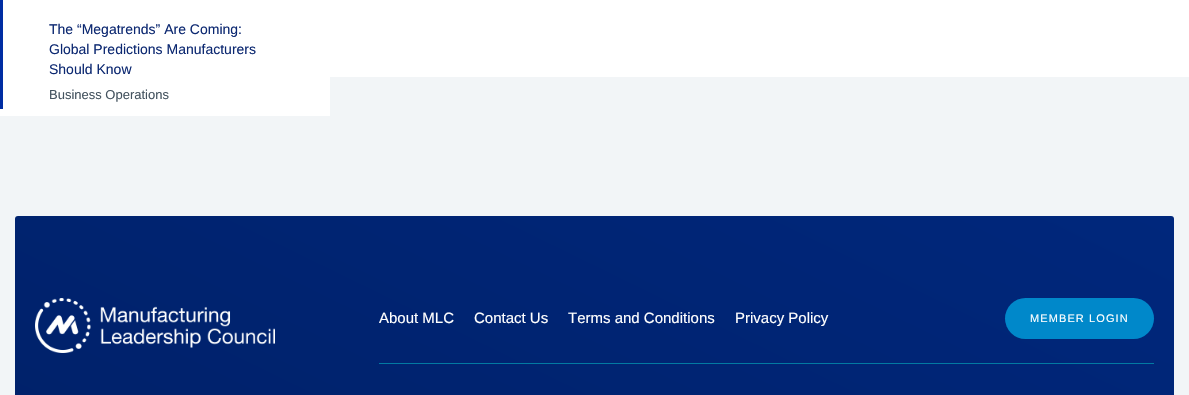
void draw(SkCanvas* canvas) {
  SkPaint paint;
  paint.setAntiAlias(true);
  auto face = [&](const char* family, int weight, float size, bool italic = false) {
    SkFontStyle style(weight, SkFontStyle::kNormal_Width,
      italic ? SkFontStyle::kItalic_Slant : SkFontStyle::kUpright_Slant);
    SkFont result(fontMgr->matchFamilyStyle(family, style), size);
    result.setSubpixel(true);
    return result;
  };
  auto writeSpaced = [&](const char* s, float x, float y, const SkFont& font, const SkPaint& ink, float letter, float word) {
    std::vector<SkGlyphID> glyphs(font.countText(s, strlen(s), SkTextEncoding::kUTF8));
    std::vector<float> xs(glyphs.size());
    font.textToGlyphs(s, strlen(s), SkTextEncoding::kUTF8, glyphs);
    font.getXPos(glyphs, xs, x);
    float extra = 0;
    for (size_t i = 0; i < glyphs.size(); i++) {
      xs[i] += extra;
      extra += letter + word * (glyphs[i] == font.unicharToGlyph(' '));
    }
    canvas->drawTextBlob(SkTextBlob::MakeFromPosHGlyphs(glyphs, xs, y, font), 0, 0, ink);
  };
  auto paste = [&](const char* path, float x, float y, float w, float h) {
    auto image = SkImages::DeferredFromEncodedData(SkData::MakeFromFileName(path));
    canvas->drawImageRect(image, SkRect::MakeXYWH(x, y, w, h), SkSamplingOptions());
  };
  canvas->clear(0xfff2f5f7);
  {
    const struct { float x, y, w, h; SkColor color; } items[] = {
      {0, 0, 330, 116, 0xffffffff},
      {0, 0, 3, 109, 0xff002da3},
      {330, 0, 859, 77, 0xffffffff},
    };
    for (auto [x, y, w, h, color] : items) {
      paint.setColor(color);
      canvas->drawRect(SkRect::MakeXYWH(x, y, w, h), paint);
    }
  }
  {
    const SkColor colors[] = {0xff00277c, 0xff001c5a};
    const float stops[] = {0, 1};
    const SkPoint ends[] = {{882, 74}, {307, 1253}};
    paint.setShader(SkGradientShader::MakeLinear(ends, colors, stops, 2, SkTileMode::kClamp));
    paint.setAlpha(255);
  }
  canvas->drawRoundRect(SkRect::MakeXYWH(15, 216, 1159, 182), 3, 3, paint);
  paste("img/1.png", 35, 298, 240, 55);
  paint.setShader(nullptr);
  paint.setColor(0xff027aa2);
  canvas->drawRect(SkRect::MakeXYWH(379, 363, 775, 1), paint);
  paint.setColor(0xff0088ca);
  canvas->drawRoundRect(SkRect::MakeXYWH(1005, 298, 149, 41), 20.5f, 20.5f, paint);
  auto f0 = face("Liberation Sans", 400, 14);
  paint.setColor(0xff0c2871);
  {
    const struct { const char* s; float x, y; } items[] = {
      {"The “Megatrends” Are Coming:", 49, 34},
      {"Global Predictions Manufacturers", 49, 54},
      {"Should Know", 49, 74},
    };
    for (auto [s, x, y] : items) {
      canvas->drawString(s, x, y, f0, paint);
    }
  }
  auto f1 = face("Liberation Sans", 400, 13);
  paint.setColor(0xff44535f);
  canvas->drawString("Business Operations", 49, 99, f1, paint);
  auto f2 = face("Liberation Sans", 400, 15);
  paint.setColor(0xffffffff);
  {
    const struct { const char* s; float x, y; } items[] = {
      {"About MLC", 379, 323},
      {"Contact Us", 474, 323},
      {"Terms and Conditions", 568, 323},
      {"Privacy Policy", 735, 323},
    };
    for (auto [s, x, y] : items) {
      canvas->drawString(s, x, y, f2, paint);
    }
  }
  auto f3 = face("Liberation Sans", 400, 11);
  writeSpaced("MEMBER LOGIN", 1030, 322, f3, paint, 1.1f, 0);
}
